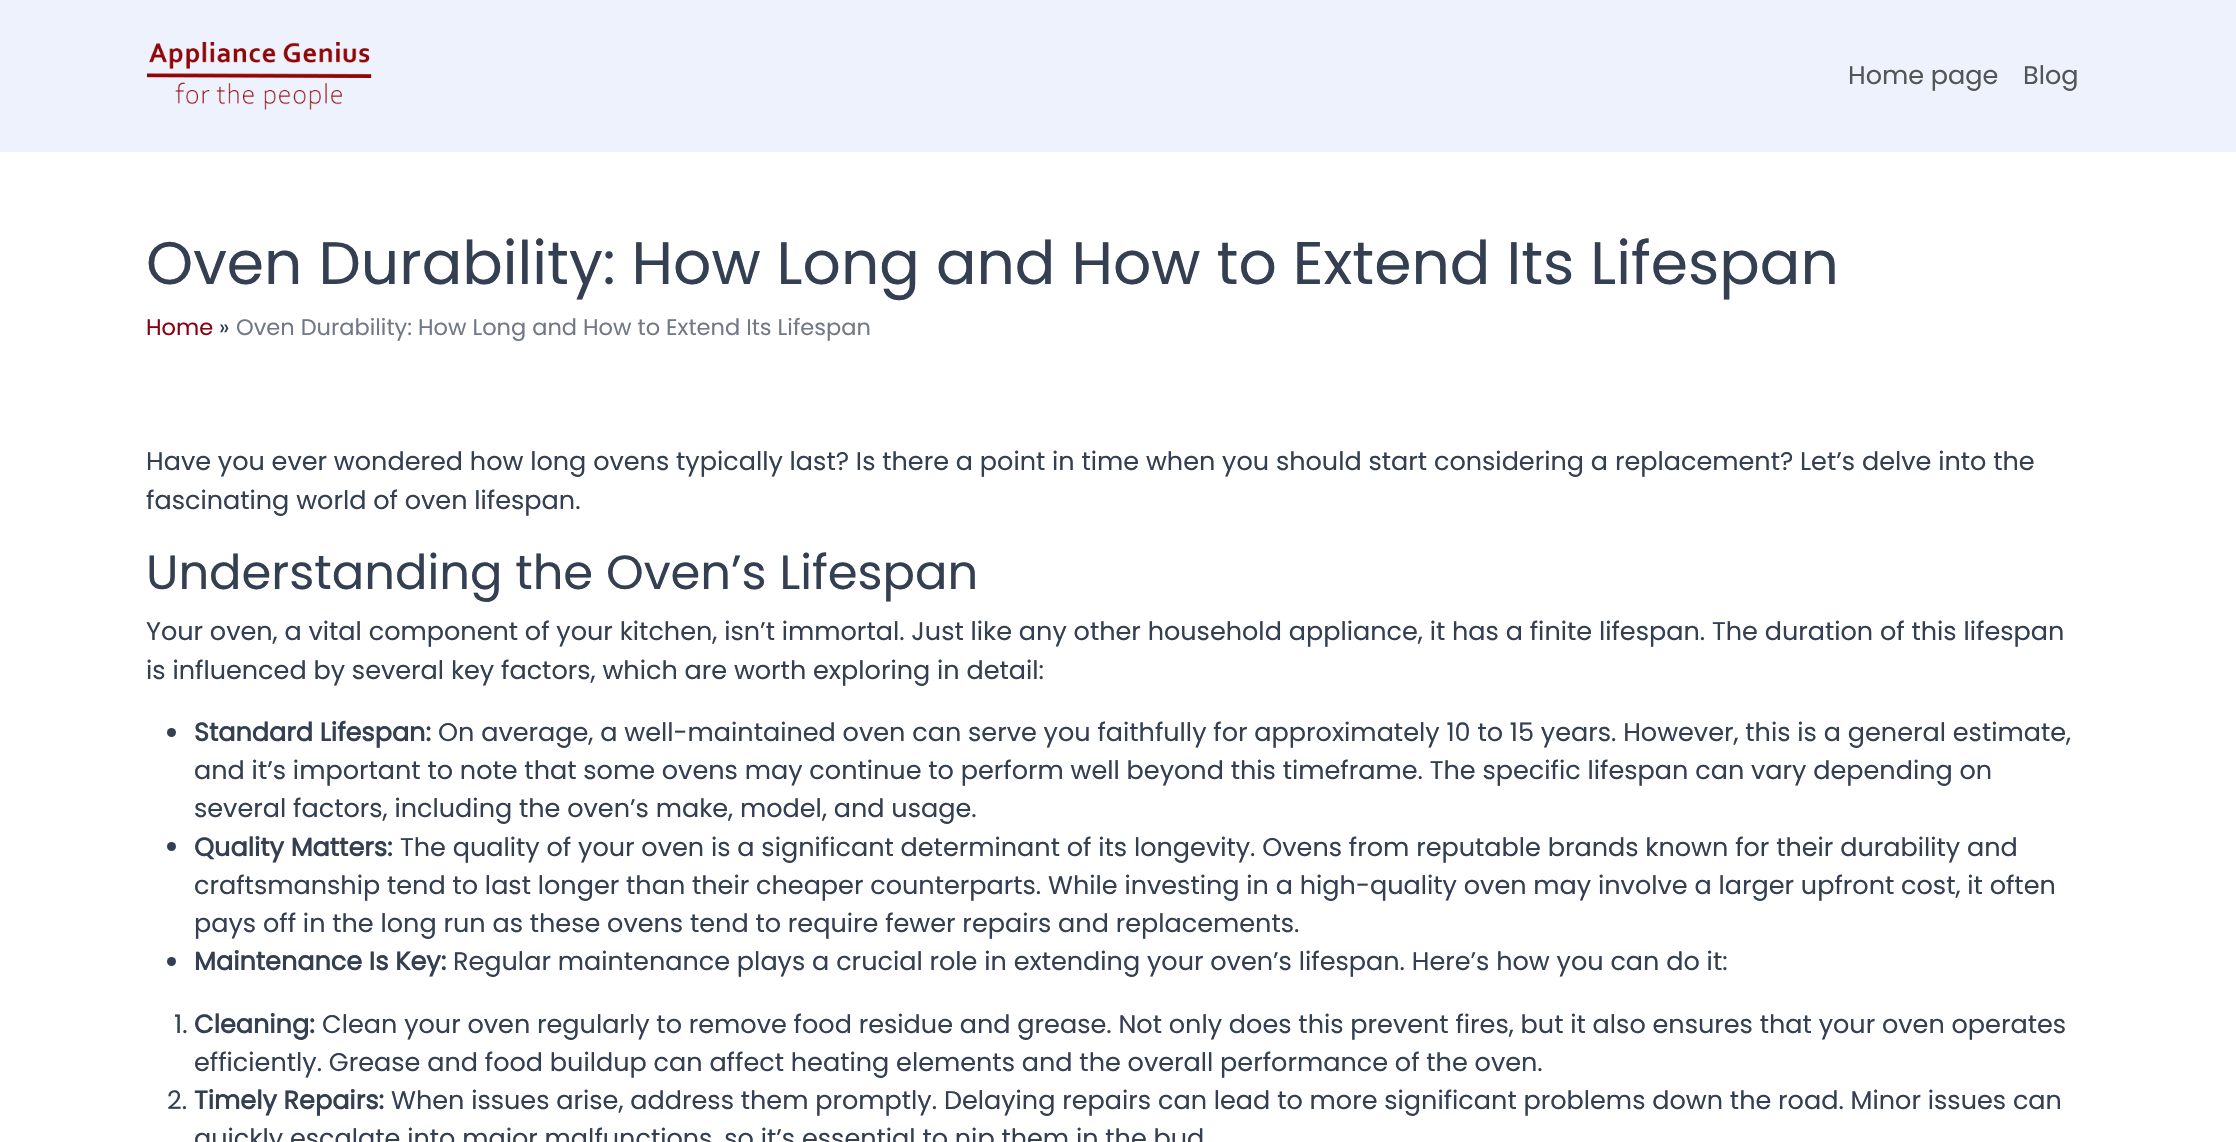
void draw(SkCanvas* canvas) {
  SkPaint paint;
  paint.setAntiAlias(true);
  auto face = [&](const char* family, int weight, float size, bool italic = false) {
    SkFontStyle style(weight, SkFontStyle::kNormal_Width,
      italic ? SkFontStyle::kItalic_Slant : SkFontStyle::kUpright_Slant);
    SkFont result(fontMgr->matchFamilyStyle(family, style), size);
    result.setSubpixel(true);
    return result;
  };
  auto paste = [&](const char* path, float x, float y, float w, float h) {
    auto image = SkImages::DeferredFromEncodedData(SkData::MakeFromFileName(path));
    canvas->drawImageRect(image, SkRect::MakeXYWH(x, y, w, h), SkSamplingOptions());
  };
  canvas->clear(0xffffffff);
  paint.setColor(0xffedf2fc);
  canvas->drawRect(SkRect::MakeXYWH(0, 0, 2236, 152), paint);
  paste("img/1.png", 147, 42, 225, 68);
  paint.setColor(0xff343f52);
  canvas->drawCircle(171.5f, 732.5f, 4.5f, paint);
  canvas->drawCircle(171.5f, 846.5f, 4.5f, paint);
  canvas->drawCircle(171.5f, 961.5f, 4.5f, paint);
  auto f0 = face("Poppins", 400, 25.5f);
  paint.setColor(0xff535558);
  canvas->drawString("Home page", 1848, 84, f0, paint);
  canvas->drawString("Blog", 2023, 84, f0, paint);
  auto f1 = face("Poppins", 400, 60);
  paint.setColor(0xff343f52);
  canvas->drawString("Oven Durability: How Long and How to Extend Its Lifespan", 146, 284, f1, paint);
  auto f2 = face("Poppins", 400, 22.5f);
  paint.setColor(0xff8c0014);
  canvas->drawString("Home", 146, 335, f2, paint);
  paint.setColor(0xff343f52);
  canvas->drawString("»", 219, 335, f2, paint);
  paint.setColor(0xff717986);
  canvas->drawString("Oven Durability: How Long and How to Extend Its Lifespan", 236, 335, f2, paint);
  paint.setColor(0xff343f52);
  canvas->drawString("Have you ever wondered how long ovens typically last? Is there a point in time when you should start considering a replacement? Let’s delve into the", 146, 470, f0, paint);
  canvas->drawString("fascinating world of oven lifespan.", 146, 509, f0, paint);
  auto f3 = face("Poppins", 400, 48);
  canvas->drawString("Understanding the Oven’s Lifespan", 146, 589, f3, paint);
  canvas->drawString("Your oven, a vital component of your kitchen, isn’t immortal. Just like any other household appliance, it has a finite lifespan. The duration of this lifespan", 146, 640, f0, paint);
  canvas->drawString("is influenced by several key factors, which are worth exploring in detail:", 146, 679, f0, paint);
  auto f4 = face("Poppins", 700, 25.5f);
  canvas->drawString("Standard Lifespan:", 194, 741, f4, paint);
  {
    const struct { const char* s; float x, y; } items[] = {
      {"On average, a well-maintained oven can serve you faithfully for approximately 10 to 15 years. However, this is a general estimate,", 438, 741},
      {"and it’s important to note that some ovens may continue to perform well beyond this timeframe. The specific lifespan can vary depending on", 194, 779},
      {"several factors, including the oven’s make, model, and usage.", 194, 817},
    };
    for (auto [s, x, y] : items) {
      canvas->drawString(s, x, y, f0, paint);
    }
  }
  canvas->drawString("Quality Matters:", 194, 856, f4, paint);
  {
    const struct { const char* s; float x, y; } items[] = {
      {"The quality of your oven is a significant determinant of its longevity. Ovens from reputable brands known for their durability and", 400, 856},
      {"craftsmanship tend to last longer than their cheaper counterparts. While investing in a high-quality oven may involve a larger upfront cost, it often", 194, 894},
      {"pays off in the long run as these ovens tend to require fewer repairs and replacements.", 194, 932},
    };
    for (auto [s, x, y] : items) {
      canvas->drawString(s, x, y, f0, paint);
    }
  }
  canvas->drawString("Maintenance Is Key:", 194, 970, f4, paint);
  canvas->drawString("Regular maintenance plays a crucial role in extending your oven’s lifespan. Here’s how you can do it:", 453, 970, f0, paint);
  canvas->drawString("1.", 174, 1033, f0, paint);
  canvas->drawString("Cleaning:", 194, 1033, f4, paint);
  {
    const struct { const char* s; float x, y; } items[] = {
      {"Clean your oven regularly to remove food residue and grease. Not only does this prevent fires, but it also ensures that your oven operates", 322, 1033},
      {"efficiently. Grease and food buildup can affect heating elements and the overall performance of the oven.", 194, 1071},
      {"2.", 167, 1109},
    };
    for (auto [s, x, y] : items) {
      canvas->drawString(s, x, y, f0, paint);
    }
  }
  canvas->drawString("Timely Repairs:", 194, 1109, f4, paint);
  canvas->drawString("When issues arise, address them promptly. Delaying repairs can lead to more significant problems down the road. Minor issues can", 391, 1109, f0, paint);
  canvas->drawString("quickly escalate into major malfunctions, so it’s essential to nip them in the bud", 194, 1147, f0, paint);
}
